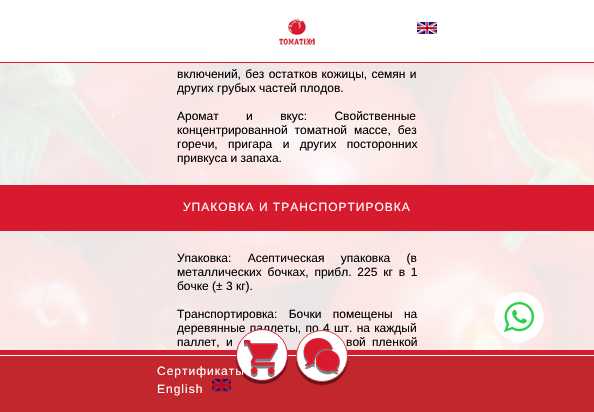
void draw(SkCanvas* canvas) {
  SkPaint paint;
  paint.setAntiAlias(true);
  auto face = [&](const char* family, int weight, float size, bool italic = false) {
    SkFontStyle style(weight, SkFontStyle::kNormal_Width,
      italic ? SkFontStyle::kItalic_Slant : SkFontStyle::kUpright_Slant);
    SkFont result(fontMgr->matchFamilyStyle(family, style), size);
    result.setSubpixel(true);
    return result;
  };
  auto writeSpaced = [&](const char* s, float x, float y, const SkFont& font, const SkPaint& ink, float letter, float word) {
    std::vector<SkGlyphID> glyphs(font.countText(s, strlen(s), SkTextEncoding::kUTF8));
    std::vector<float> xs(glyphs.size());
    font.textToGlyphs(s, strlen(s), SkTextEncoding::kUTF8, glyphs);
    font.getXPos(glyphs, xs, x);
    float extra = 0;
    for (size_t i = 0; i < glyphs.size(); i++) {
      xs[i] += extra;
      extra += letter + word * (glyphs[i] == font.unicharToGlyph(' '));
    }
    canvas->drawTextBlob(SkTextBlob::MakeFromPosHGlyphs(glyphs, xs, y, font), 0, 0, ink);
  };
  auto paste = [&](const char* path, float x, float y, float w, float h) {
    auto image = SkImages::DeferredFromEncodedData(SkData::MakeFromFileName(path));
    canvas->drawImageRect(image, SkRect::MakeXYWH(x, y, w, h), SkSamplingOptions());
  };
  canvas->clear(0xffffffff);
  paste("img/1.png", 0, 63, 594, 287);
  paint.setColor(0xffd81a2f);
  canvas->drawRect(SkRect::MakeXYWH(0, 185, 594, 46), paint);
  paste("img/2.png", 279, 18, 36, 27);
  paste("img/3.png", 417, 22, 20, 12);
  {
    const struct { float x, y, w, h; SkColor color; } items[] = {
      {0, 62, 594, 1, 0xffd81a2f},
      {0, 350, 594, 5, 0xffd81a2f},
      {0, 356, 594, 56, 0xffc1272d},
    };
    for (auto [x, y, w, h, color] : items) {
      paint.setColor(color);
      canvas->drawRect(SkRect::MakeXYWH(x, y, w, h), paint);
    }
  }
  paint.setColor(0x80000000);
  paint.setMaskFilter(SkMaskFilter::MakeBlur(kNormal_SkBlurStyle, 0.5f));
  canvas->drawRoundRect(SkRect::MakeXYWH(236, 332, 52, 52), 26, 26, paint);
  paint.setMaskFilter(nullptr);
  paint.setMaskFilter(SkMaskFilter::MakeBlur(kNormal_SkBlurStyle, 0.5f));
  canvas->drawRoundRect(SkRect::MakeXYWH(296, 333, 52, 52), 26, 26, paint);
  paint.setMaskFilter(nullptr);
  paste("img/6.png", 212, 379, 19, 13);
  paint.setColor(0xffffffff);
  canvas->drawCircle(519, 317, 25, paint);
  paste("img/7.png", 504, 302, 30, 30);
  auto f0 = face("Liberation Sans", 400, 12);
  paint.setColor(0xff000000);
  writeSpaced("включений, без остатков кожицы, семян и", 177, 78, f0, paint, 0, 1);
  canvas->drawString("других грубых частей плодов.", 177, 92, f0, paint);
  writeSpaced("Аромат и вкус: Свойственные", 177, 120, f0, paint, 0, 24);
  writeSpaced("концентрированной томатной массе, без", 177, 134, f0, paint, 0, 3.5f);
  writeSpaced("горечи, пригара и других посторонних", 177, 148, f0, paint, 0, 7);
  canvas->drawString("привкуса и запаха.", 177, 162, f0, paint);
  paint.setColor(0xffffffff);
  writeSpaced("УПАКОВКА И ТРАНСПОРТИРОВКА", 183, 211, f0, paint, 1, 0);
  paint.setColor(0xff000000);
  writeSpaced("Упаковка: Асептическая упаковка (в", 177, 262, f0, paint, 0, 13);
  writeSpaced("металлических бочках, прибл. 225 кг в 1", 177, 276, f0, paint, 0, 2.5f);
  canvas->drawString("бочке (± 3 кг).", 177, 290, f0, paint);
  writeSpaced("Транспортировка: Бочки помещены на", 177, 318, f0, paint, 0, 8);
  writeSpaced("деревянные паллеты, по 4 шт. на каждый", 177, 332, f0, paint, 0, 1);
  writeSpaced("паллет, и", 177, 346, f0, paint, 0, 3);
  writeSpaced("вой пленкой", 346, 346, f0, paint, 0, 3);
  paint.setColor(0xffffffff);
  canvas->drawCircle(262, 355, 25.5f, paint);
  paint.setStroke(true);
  paint.setStrokeWidth(1);
  paint.setColor(0xffd81a46);
  canvas->drawCircle(262, 355, 25.5f, paint);
  paste("img/4.png", 244, 340, 34, 37);
  paint.setStroke(false);
  paint.setColor(0xffffffff);
  canvas->drawCircle(322, 356, 25.5f, paint);
  paint.setStroke(true);
  paint.setColor(0xffd83c2f);
  canvas->drawCircle(322, 356, 25.5f, paint);
  paste("img/5.png", 303, 337, 37, 38);
  paint.setStroke(false);
  paint.setColor(0xffffffff);
  writeSpaced("Сертификаты", 157, 375, f0, paint, 1, 0);
  writeSpaced("English", 157, 393, f0, paint, 1, 0);
}
